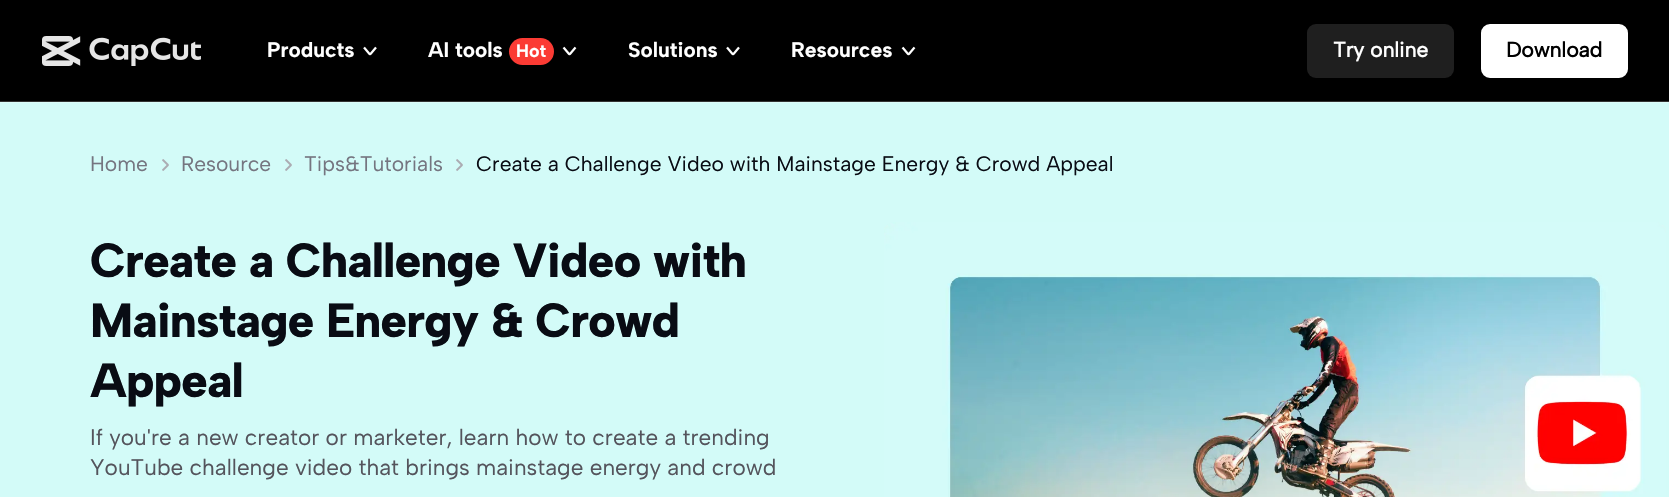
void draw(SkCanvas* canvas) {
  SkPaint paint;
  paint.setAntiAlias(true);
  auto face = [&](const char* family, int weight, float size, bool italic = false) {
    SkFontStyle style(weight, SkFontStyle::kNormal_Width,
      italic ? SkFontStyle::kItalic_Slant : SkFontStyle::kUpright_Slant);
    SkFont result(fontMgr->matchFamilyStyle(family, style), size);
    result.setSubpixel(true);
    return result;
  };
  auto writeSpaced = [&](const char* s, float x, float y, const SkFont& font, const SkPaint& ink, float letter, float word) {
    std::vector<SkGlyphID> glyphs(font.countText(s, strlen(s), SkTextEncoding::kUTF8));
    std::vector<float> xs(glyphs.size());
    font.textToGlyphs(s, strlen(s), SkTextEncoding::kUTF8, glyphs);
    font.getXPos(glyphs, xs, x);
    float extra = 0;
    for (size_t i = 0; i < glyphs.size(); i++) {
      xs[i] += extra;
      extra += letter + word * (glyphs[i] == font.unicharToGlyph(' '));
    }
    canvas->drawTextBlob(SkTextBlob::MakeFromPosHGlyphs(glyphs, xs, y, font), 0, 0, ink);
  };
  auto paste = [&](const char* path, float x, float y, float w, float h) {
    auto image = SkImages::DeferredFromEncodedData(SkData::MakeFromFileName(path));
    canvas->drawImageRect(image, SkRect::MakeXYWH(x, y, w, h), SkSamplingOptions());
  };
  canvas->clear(0xffd3fbf8);
  paint.setColor(0xff000000);
  canvas->drawRect(SkRect::MakeXYWH(0, 0, 1669, 101), paint);
  paint.setColor(0xff333333);
  canvas->drawRect(SkRect::MakeXYWH(0, 101, 1669, 1), paint);
  paste("img/1.png", 42, 36, 159, 30);
  paste("img/2.png", 363, 46, 14, 10);
  paint.setColor(0xfffb3b34);
  canvas->drawRoundRect(SkRect::MakeXYWH(509, 38, 45, 27), 13.5f, 13.5f, paint);
  paste("img/3.png", 562, 46, 15, 10);
  paste("img/2.png", 726, 46, 14, 10);
  paste("img/3.png", 901, 46, 15, 10);
  paint.setColor(0xff1f1f1f);
  canvas->drawRoundRect(SkRect::MakeXYWH(1307, 24, 147, 54), 9, 9, paint);
  paint.setColor(0xffffffff);
  canvas->drawRoundRect(SkRect::MakeXYWH(1482, 25, 145, 52), 8, 8, paint);
  paint.setStroke(true);
  paint.setStrokeWidth(2);
  canvas->drawRoundRect(SkRect::MakeXYWH(1482, 25, 145, 52), 8, 8, paint);
  paint.setStroke(false);
  paint.setColor(0xffdcfcf9);
  canvas->drawRect(SkRect::MakeXYWH(0, 102, 1669, 1), paint);
  paste("img/4.png", 162, 159, 7, 12);
  paste("img/4.png", 285, 159, 7, 12);
  paste("img/4.png", 456, 159, 7, 12);
  paste("img/5.png", 884, 222, 782, 275);
  auto f0 = face("Albert Sans", 700, 21);
  paint.setColor(0xffffffff);
  canvas->drawString("Products", 267, 57, f0, paint);
  canvas->drawString("AI tools", 428, 57, f0, paint);
  auto f1 = face("Albert Sans", 700, 18);
  canvas->drawString("Hot", 516, 57, f1, paint);
  canvas->drawString("Solutions", 628, 57, f0, paint);
  canvas->drawString("Resources", 791, 57, f0, paint);
  auto f2 = face("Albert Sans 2", 700, 21);
  canvas->drawString("Try online", 1333, 57, f2, paint);
  paint.setColor(0xff000000);
  canvas->drawString("Download", 1506, 57, f2, paint);
  auto f3 = face("Albert Sans", 400, 21);
  paint.setColor(0xff757580);
  {
    const struct { const char* s; float x, y; } items[] = {
      {"Home", 90, 171},
      {"Resource", 181, 171},
      {"Tips&Tutorials", 304, 171},
    };
    for (auto [s, x, y] : items) {
      canvas->drawString(s, x, y, f3, paint);
    }
  }
  paint.setColor(0xff090c14);
  canvas->drawString("Create a Challenge Video with Mainstage Energy & Crowd Appeal", 476, 171, f3, paint);
  auto f4 = face("Albert Sans", 800, 48);
  {
    const struct { const char* s; float x, y; } items[] = {
      {"Create a Challenge Video with", 90, 277},
      {"Mainstage Energy & Crowd", 90, 337},
      {"Appeal", 90, 397},
    };
    for (auto [s, x, y] : items) {
      writeSpaced(s, x, y, f4, paint, -0.95f, 0);
    }
  }
  auto f5 = face("Albert Sans", 400, 22.5f);
  paint.setColor(0xff54545c);
  canvas->drawString("If you're a new creator or marketer, learn how to create a trending", 90, 445, f5, paint);
  canvas->drawString("YouTube challenge video that brings mainstage energy and crowd", 90, 475, f5, paint);
}
